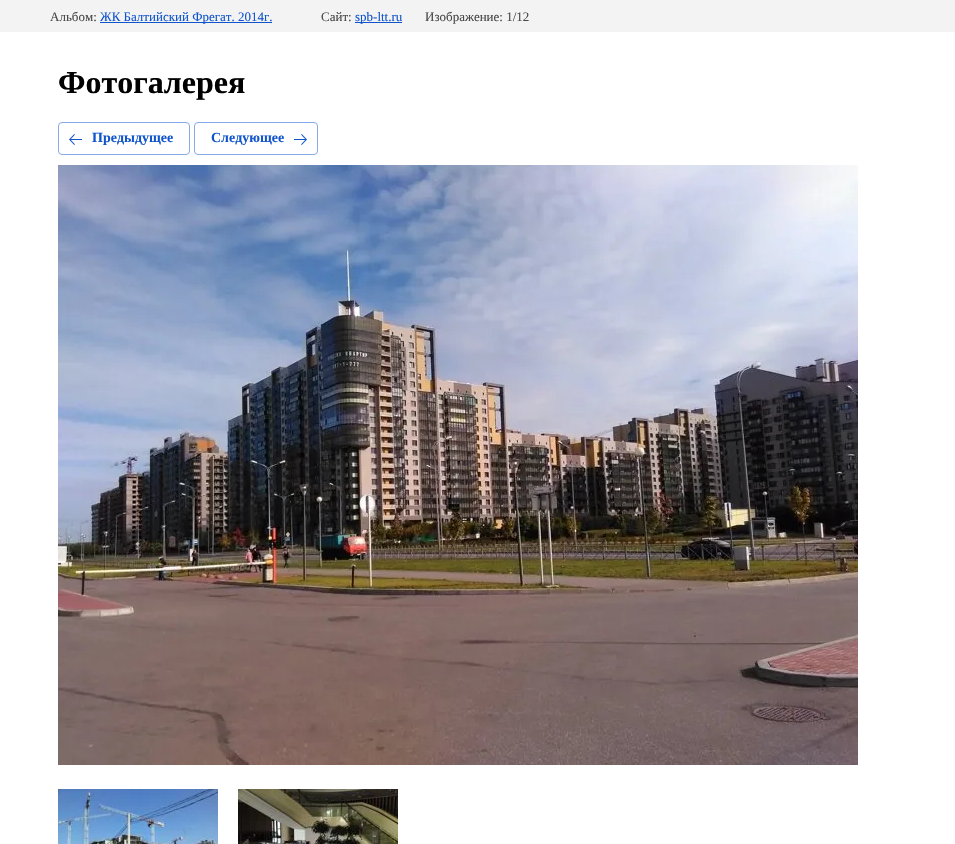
void draw(SkCanvas* canvas) {
  SkPaint paint;
  paint.setAntiAlias(true);
  auto face = [&](const char* family, int weight, float size, bool italic = false) {
    SkFontStyle style(weight, SkFontStyle::kNormal_Width,
      italic ? SkFontStyle::kItalic_Slant : SkFontStyle::kUpright_Slant);
    SkFont result(fontMgr->matchFamilyStyle(family, style), size);
    result.setSubpixel(true);
    return result;
  };
  auto paste = [&](const char* path, float x, float y, float w, float h) {
    auto image = SkImages::DeferredFromEncodedData(SkData::MakeFromFileName(path));
    canvas->drawImageRect(image, SkRect::MakeXYWH(x, y, w, h), SkSamplingOptions());
  };
  canvas->clear(0xffffffff);
  {
    const struct { float x, y, w, h; SkColor color; } items[] = {
      {0, 0, 955, 32, 0xfff3f3f3},
      {100, 22, 172, 1, 0xff1155cc},
      {355, 22, 47, 1, 0xff1155cc},
    };
    for (auto [x, y, w, h, color] : items) {
      paint.setColor(color);
      canvas->drawRect(SkRect::MakeXYWH(x, y, w, h), paint);
    }
  }
  paint.setStroke(true);
  paint.setStrokeWidth(1);
  paint.setColor(0xff88aae6);
  canvas->drawRoundRect(SkRect::MakeXYWH(58.5f, 122.5f, 131, 32), 3.5f, 3.5f, paint);
  paste("img/1.png", 69, 134, 13, 11);
  canvas->drawRoundRect(SkRect::MakeXYWH(194.5f, 122.5f, 123, 32), 3.5f, 3.5f, paint);
  paste("img/2.png", 294, 134, 13, 11);
  paste("img/3.png", 58, 165, 800, 600);
  paste("img/4.png", 58, 789, 160, 55);
  paste("img/5.png", 238, 789, 160, 55);
  auto f0 = face("Liberation Serif", 400, 13);
  paint.setStroke(false);
  paint.setColor(0xff484848);
  canvas->drawString("Альбом:", 50, 21, f0, paint);
  paint.setColor(0xff1155cc);
  canvas->drawString("ЖК Балтийский Фрегат. 2014г.", 100, 21, f0, paint);
  paint.setColor(0xff484848);
  canvas->drawString("Сайт:", 321, 21, f0, paint);
  paint.setColor(0xff1155cc);
  canvas->drawString("spb-ltt.ru", 355, 21, f0, paint);
  paint.setColor(0xff484848);
  canvas->drawString("Изображение: 1/12", 425, 21, f0, paint);
  auto f1 = face("Liberation Serif", 700, 32);
  paint.setColor(0xff000000);
  canvas->drawString("Фотогалерея", 58, 93, f1, paint);
  auto f2 = face("Liberation Serif", 700, 14);
  paint.setColor(0xff1155cc);
  canvas->drawString("Предыдущее", 92, 142, f2, paint);
  canvas->drawString("Следующее", 211, 142, f2, paint);
}
